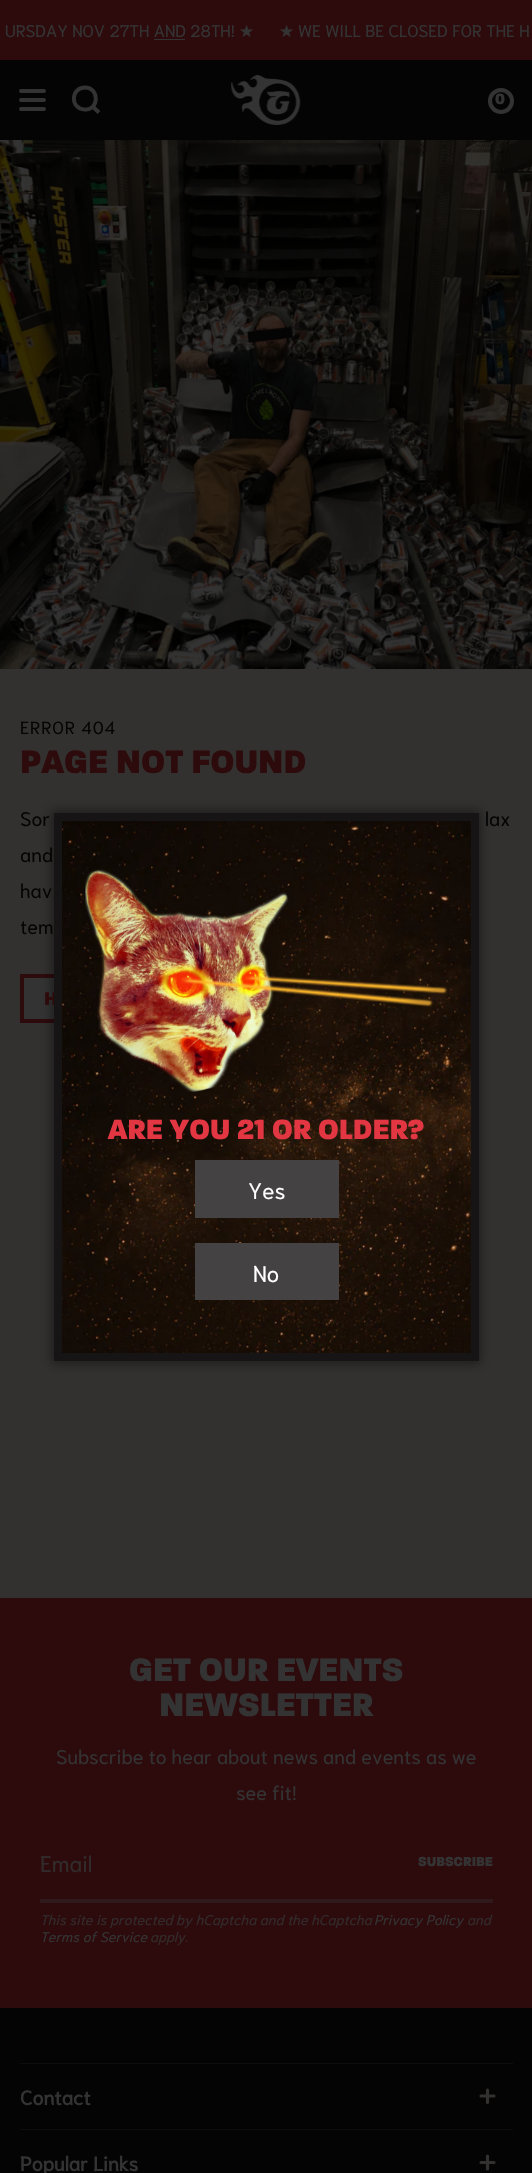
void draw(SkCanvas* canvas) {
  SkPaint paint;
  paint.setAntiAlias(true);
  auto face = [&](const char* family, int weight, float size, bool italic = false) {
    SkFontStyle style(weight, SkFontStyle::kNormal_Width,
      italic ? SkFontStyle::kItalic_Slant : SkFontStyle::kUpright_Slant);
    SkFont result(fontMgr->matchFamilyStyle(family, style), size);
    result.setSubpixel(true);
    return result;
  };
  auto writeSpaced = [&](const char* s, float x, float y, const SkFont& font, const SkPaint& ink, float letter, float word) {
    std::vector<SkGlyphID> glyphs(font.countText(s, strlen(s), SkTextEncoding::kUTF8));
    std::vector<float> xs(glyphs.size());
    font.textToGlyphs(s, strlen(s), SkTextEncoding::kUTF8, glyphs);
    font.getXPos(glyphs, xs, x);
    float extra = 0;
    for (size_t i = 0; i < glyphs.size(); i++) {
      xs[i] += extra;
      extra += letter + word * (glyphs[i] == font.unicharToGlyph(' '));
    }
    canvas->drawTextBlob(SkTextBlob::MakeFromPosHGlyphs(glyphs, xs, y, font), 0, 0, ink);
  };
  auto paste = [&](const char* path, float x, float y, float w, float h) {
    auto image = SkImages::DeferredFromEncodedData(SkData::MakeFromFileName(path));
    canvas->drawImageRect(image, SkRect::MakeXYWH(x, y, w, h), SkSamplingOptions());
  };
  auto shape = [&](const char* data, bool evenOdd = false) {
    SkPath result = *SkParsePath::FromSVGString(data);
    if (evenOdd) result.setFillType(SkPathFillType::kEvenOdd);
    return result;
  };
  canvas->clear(0xff33312f);
  {
    const struct { float x, y, w, h; SkColor color; } items[] = {
      {0, 0, 532, 60, 0xff2d0b0d},
      {154, 39, 31, 1, 0xff333333},
      {0, 60, 532, 80, 0xff040404},
    };
    for (auto [x, y, w, h, color] : items) {
      paint.setColor(color);
      canvas->drawRect(SkRect::MakeXYWH(x, y, w, h), paint);
    }
  }
  paint.setStroke(true);
  paint.setStrokeWidth(3.8f);
  paint.setStrokeCap(SkPaint::kRound_Cap);
  paint.setStrokeJoin(SkPaint::kRound_Join);
  paint.setColor(0xff333333);
  canvas->drawPath(shape("M21 91H44M21 100H44M21 109H44"), paint);
  paint.setStrokeCap(SkPaint::kButt_Cap);
  paint.setStrokeJoin(SkPaint::kMiter_Join);
  canvas->drawPath(shape("M85 87.5C99.5 87.5 99.5 110.5 84.5 109.5C70 109 70.5 87.5 85 87.5ZM92.5 106.5L99 112.5"), paint);
  paste("img/1.png", 231, 75, 70, 50);
  paint.setStrokeWidth(4);
  canvas->drawCircle(501, 101, 11, paint);
  paste("img/2.png", 0, 140, 532, 529);
  paint.setStroke(false);
  canvas->drawRect(SkRect::MakeXYWH(24, 978, 30, 41), paint);
  paint.setStroke(true);
  paint.setColor(0xff2d0b0d);
  canvas->drawRect(SkRect::MakeXYWH(22, 976, 102, 45), paint);
  paint.setStroke(false);
  paint.setColor(0x66000000);
  paint.setMaskFilter(SkMaskFilter::MakeBlur(kNormal_SkBlurStyle, 5));
  canvas->drawRect(SkRect::MakeXYWH(51, 810, 430, 554), paint);
  paint.setMaskFilter(nullptr);
  paste("img/3.png", 62, 821, 409, 532);
  {
    const struct { float x, y, w, h; SkColor color; } items[] = {
      {0, 1598, 532, 410, 0xff2d0b0d},
      {40, 1899, 453, 4, 0xff2f191b},
      {0, 2008, 532, 165, 0xff040404},
      {20, 2063, 493, 1, 0xff0e0d0d},
      {20, 2129, 493, 1, 0xff0e0d0d},
    };
    for (auto [x, y, w, h, color] : items) {
      paint.setColor(color);
      canvas->drawRect(SkRect::MakeXYWH(x, y, w, h), paint);
    }
  }
  paint.setStroke(true);
  paint.setStrokeWidth(3.1f);
  paint.setStrokeCap(SkPaint::kRound_Cap);
  paint.setStrokeJoin(SkPaint::kRound_Join);
  paint.setColor(0xff33312f);
  canvas->drawPath(shape("M481 2096H487.5M494 2096H487.5M487.5 2096V2090M487.5 2096V2102.5"), paint);
  canvas->drawPath(shape("M481 2162.5H487.5M494 2162.5H487.5M487.5 2162.5V2156M487.5 2162.5V2169"), paint);
  auto f0 = face("Niramit", 400, 16.9f);
  paint.setStroke(false);
  paint.setColor(0xff333333);
  canvas->drawString("URSDAY NOV 27TH AND 28TH!", 5, 37, f0, paint);
  auto f1 = face("DejaVu Sans", 400, 16.9f);
  canvas->drawString("★", 239, 37, f1, paint);
  canvas->drawString("★", 279, 37, f1, paint);
  canvas->drawString("WE WILL BE CLOSED FOR THE H", 298, 37, f0, paint);
  auto f2 = face("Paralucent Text", 900, 16);
  writeSpaced("0", 495, 104, f2, paint, 1, 0);
  auto f3 = face("Niramit", 400, 17.5f);
  paint.setColor(0xff040404);
  writeSpaced("ERROR 404", 20, 734, f3, paint, 0.9f, 0);
  auto f4 = face("Paralucent Text", 900, 35);
  paint.setColor(0xff2d0b0d);
  canvas->drawString("PAGE NOT FOUND", 20, 773, f4, paint);
  auto f5 = face("Niramit", 400, 19.7f);
  paint.setColor(0xff040404);
  {
    const struct { const char* s; float x, y; } items[] = {
      {"Sor", 20, 826},
      {"lax", 485, 826},
      {"and", 20, 862},
      {"hav", 20, 898},
      {"tem", 20, 934},
    };
    for (auto [s, x, y] : items) {
      canvas->drawString(s, x, y, f5, paint);
    }
  }
  auto f6 = face("Paralucent Text", 900, 20);
  paint.setColor(0xff2d0b0d);
  canvas->drawString("H", 44, 1005, f6, paint);
  paint.setStroke(true);
  paint.setStrokeWidth(8);
  paint.setStrokeCap(SkPaint::kButt_Cap);
  paint.setStrokeJoin(SkPaint::kMiter_Join);
  paint.setColor(0xff161414);
  canvas->drawRect(SkRect::MakeXYWH(58, 817, 417, 540), paint);
  paste("img/4.png", 85, 869, 363, 223);
  auto f7 = face("Paralucent Text", 900, 30);
  paint.setStroke(false);
  paint.setColor(0xffe33643);
  canvas->drawString("ARE YOU 21 OR OLDER?", 108, 1139, f7, paint);
  paint.setColor(0xff444242);
  canvas->drawRect(SkRect::MakeXYWH(195, 1160, 144, 58), paint);
  auto f8 = face("Niramit", 400, 22.5f);
  paint.setColor(0xffffffff);
  canvas->drawString("Yes", 248, 1199, f8, paint);
  paint.setColor(0xff444242);
  canvas->drawRect(SkRect::MakeXYWH(195, 1243, 144, 57), paint);
  paint.setColor(0xffffffff);
  canvas->drawString("No", 253, 1282, f8, paint);
  paint.setColor(0xff333333);
  canvas->drawString("GET OUR EVENTS", 129, 1681, f4, paint);
  canvas->drawString("NEWSLETTER", 159, 1716, f4, paint);
  canvas->drawString("Subscribe to hear about news and events as we", 56, 1764, f5, paint);
  canvas->drawString("see fit!", 236, 1800, f5, paint);
  paint.setColor(0xff322b2b);
  canvas->drawString("Email", 40, 1872, f8, paint);
  auto f9 = face("Paralucent Text", 900, 14.1f);
  paint.setColor(0xff333333);
  canvas->drawString("SUBSCRIBE", 418, 1866, f9, paint);
  auto f10 = face("Niramit", 400, 14.1f, true);
  paint.setColor(0xff322b2b);
  canvas->drawString("This site is protected by hCaptcha and the hCaptcha", 40, 1925, f10, paint);
  paint.setColor(0xff333333);
  canvas->drawString("Privacy Policy", 374, 1925, f10, paint);
  paint.setColor(0xff322b2b);
  canvas->drawString("and", 467, 1925, f10, paint);
  paint.setColor(0xff333333);
  canvas->drawString("Terms of Service", 40, 1942, f10, paint);
  paint.setColor(0xff322b2b);
  canvas->drawString("apply.", 150, 1942, f10, paint);
  auto f11 = face("Niramit", 700, 20);
  paint.setColor(0xff333333);
  canvas->drawString("Contact", 20, 2105, f11, paint);
  canvas->drawString("Popular Links", 20, 2171, f11, paint);
}
